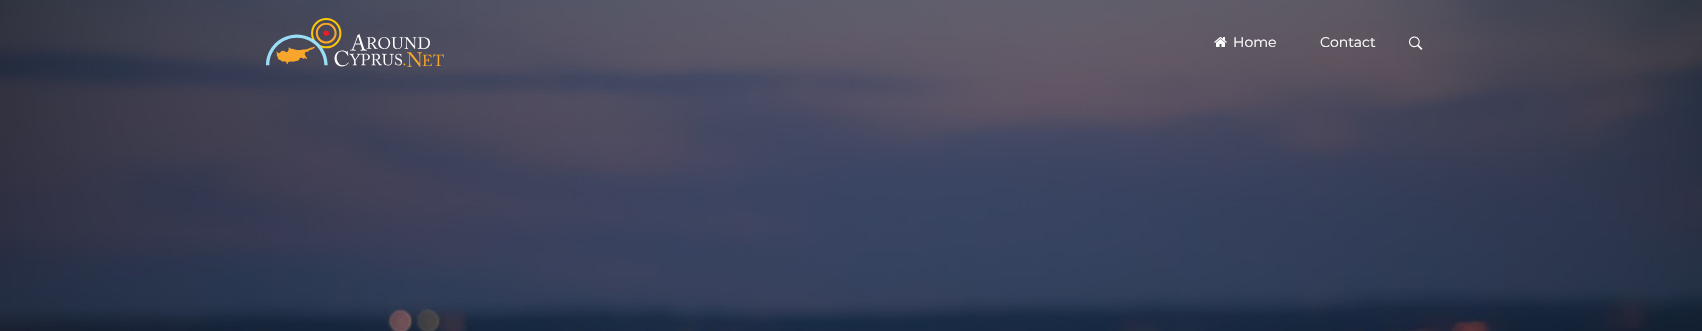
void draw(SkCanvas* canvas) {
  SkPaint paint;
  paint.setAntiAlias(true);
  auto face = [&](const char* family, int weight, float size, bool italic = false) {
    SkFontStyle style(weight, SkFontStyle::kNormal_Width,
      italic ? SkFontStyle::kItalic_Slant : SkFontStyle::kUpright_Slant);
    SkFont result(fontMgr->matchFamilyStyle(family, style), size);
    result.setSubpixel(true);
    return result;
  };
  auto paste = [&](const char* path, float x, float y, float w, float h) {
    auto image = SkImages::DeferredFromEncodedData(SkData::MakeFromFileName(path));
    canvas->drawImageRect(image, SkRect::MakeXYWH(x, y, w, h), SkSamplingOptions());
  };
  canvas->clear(0xffffffff);
  paste("img/1.png", 0, 0, 1702, 331);
  paste("img/2.png", 266, 18, 178, 49);
  paste("img/3.png", 1214, 37, 13, 10);
  paste("img/4.png", 1409, 36, 14, 14);
  auto f0 = face("Montserrat", 400, 14);
  paint.setColor(0xffffffff);
  canvas->drawString("Home", 1233, 47, f0, paint);
  canvas->drawString("Contact", 1320, 47, f0, paint);
}
